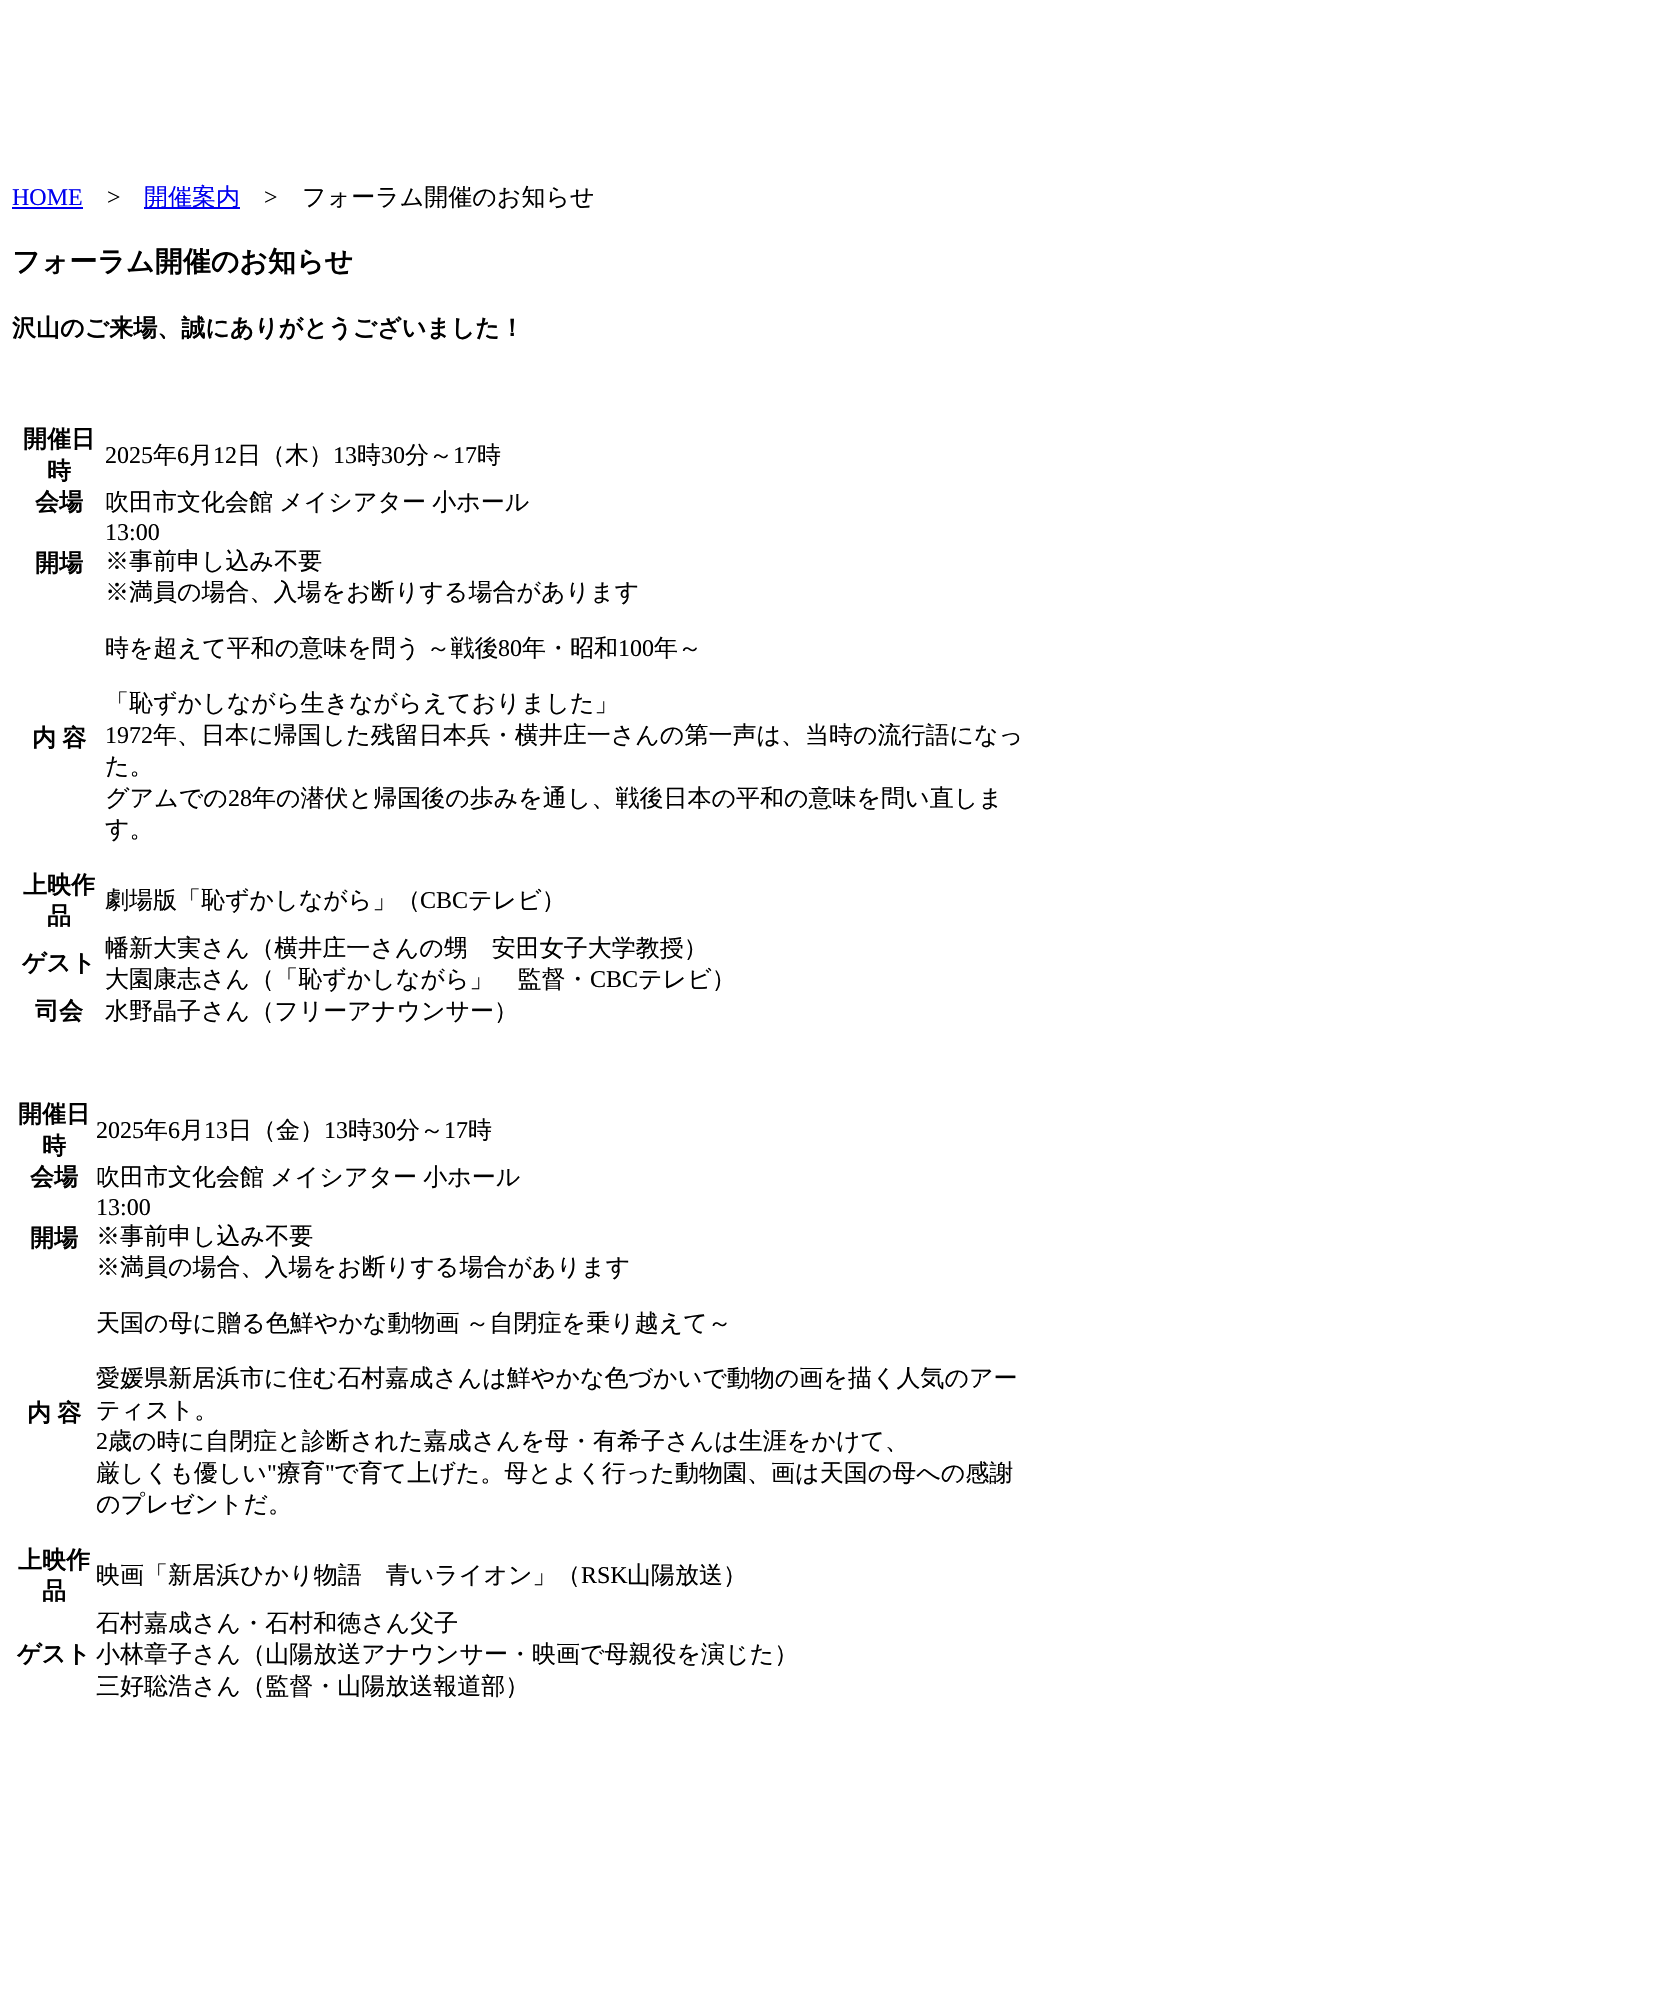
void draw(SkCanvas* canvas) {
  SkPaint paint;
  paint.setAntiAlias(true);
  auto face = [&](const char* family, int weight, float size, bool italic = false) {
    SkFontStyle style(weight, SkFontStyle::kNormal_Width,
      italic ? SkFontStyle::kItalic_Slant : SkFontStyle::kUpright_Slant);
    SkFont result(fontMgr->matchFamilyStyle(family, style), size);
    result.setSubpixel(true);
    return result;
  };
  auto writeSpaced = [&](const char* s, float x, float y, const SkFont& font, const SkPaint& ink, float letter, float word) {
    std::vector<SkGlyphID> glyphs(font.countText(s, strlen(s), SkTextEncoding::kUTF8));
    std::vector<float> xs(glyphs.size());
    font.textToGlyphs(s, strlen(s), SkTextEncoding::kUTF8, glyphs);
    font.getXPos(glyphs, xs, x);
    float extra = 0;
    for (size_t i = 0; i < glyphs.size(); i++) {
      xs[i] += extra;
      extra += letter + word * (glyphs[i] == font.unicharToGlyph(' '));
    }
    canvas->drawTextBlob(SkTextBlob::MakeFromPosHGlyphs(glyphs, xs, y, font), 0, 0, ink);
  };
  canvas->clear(0xffffffff);
  paint.setColor(0xff0000ee);
  canvas->drawRect(SkRect::MakeXYWH(12, 207, 71, 2), paint);
  canvas->drawRect(SkRect::MakeXYWH(144, 207, 96, 2), paint);
  auto f0 = face("Liberation Serif", 400, 24);
  canvas->drawString("HOME", 12, 205, f0, paint);
  paint.setColor(0xff000000);
  canvas->drawString(">", 107, 205, f0, paint);
  auto f1 = face("WenQuanYi Zen Hei", 500, 24);
  paint.setColor(0xff0000ee);
  canvas->drawString("開催案内", 144, 205, f1, paint);
  paint.setColor(0xff000000);
  canvas->drawString(">", 264, 205, f0, paint);
  canvas->drawString("フォーラム開催のお知らせ", 302, 205, f1, paint);
  auto f2 = face("WenQuanYi Zen Hei", 700, 28);
  canvas->drawString("フォーラム開催のお知らせ", 12, 271, f2, paint);
  auto f3 = face("WenQuanYi Zen Hei", 700, 24);
  {
    const struct { const char* s; float x, y; } items[] = {
      {"沢山のご来場、誠にありがとうございました！", 12, 336},
      {"開催日", 23, 447},
      {"時", 47, 479},
    };
    for (auto [s, x, y] : items) {
      canvas->drawString(s, x, y, f3, paint);
    }
  }
  canvas->drawString("2025", 105, 463, f0, paint);
  canvas->drawString("年", 153, 463, f1, paint);
  canvas->drawString("6", 177, 463, f0, paint);
  canvas->drawString("月", 189, 463, f1, paint);
  canvas->drawString("12", 213, 463, f0, paint);
  canvas->drawString("日（木）", 237, 463, f1, paint);
  canvas->drawString("13", 333, 463, f0, paint);
  canvas->drawString("時", 357, 463, f1, paint);
  canvas->drawString("30", 381, 463, f0, paint);
  canvas->drawString("分～", 405, 463, f1, paint);
  canvas->drawString("17", 453, 463, f0, paint);
  canvas->drawString("時", 477, 463, f1, paint);
  canvas->drawString("会場", 35, 510, f3, paint);
  writeSpaced("吹田市文化会館 メイシアター 小ホール", 105, 510, f1, paint, 0, -1);
  canvas->drawString("開場", 35, 571, f3, paint);
  canvas->drawString("13:00", 105, 540, f0, paint);
  canvas->drawString("※事前申し込み不要", 105, 569, f1, paint);
  canvas->drawString("※満員の場合、入場をお断りする場合があります", 105, 600, f1, paint);
  writeSpaced("内 容", 32, 746, f3, paint, 0, -1);
  writeSpaced("時を超えて平和の意味を問う ～戦後", 105, 656, f1, paint, 0, -1);
  canvas->drawString("80", 498, 656, f0, paint);
  canvas->drawString("年・昭和", 522, 656, f1, paint);
  canvas->drawString("100", 618, 656, f0, paint);
  canvas->drawString("年～", 654, 656, f1, paint);
  canvas->drawString("「恥ずかしながら生きながらえておりました」", 105, 711, f1, paint);
  canvas->drawString("1972", 105, 743, f0, paint);
  {
    const struct { const char* s; float x, y; } items[] = {
      {"年、日本に帰国した残留日本兵・横井庄一さんの第一声は、当時の流行語になっ", 153, 743},
      {"た。", 105, 774},
      {"グアムでの", 105, 806},
    };
    for (auto [s, x, y] : items) {
      canvas->drawString(s, x, y, f1, paint);
    }
  }
  canvas->drawString("28", 228, 806, f0, paint);
  canvas->drawString("年の潜伏と帰国後の歩みを通し、戦後日本の平和の意味を問い直しま", 252, 806, f1, paint);
  canvas->drawString("す。", 105, 837, f1, paint);
  canvas->drawString("上映作", 23, 893, f3, paint);
  canvas->drawString("品", 47, 924, f3, paint);
  canvas->drawString("劇場版「恥ずかしながら」（", 105, 908, f1, paint);
  canvas->drawString("CBC", 420, 908, f0, paint);
  canvas->drawString("テレビ）", 468, 908, f1, paint);
  canvas->drawString("ゲスト", 22, 971, f3, paint);
  canvas->drawString("幡新大実さん（横井庄一さんの甥　安田女子大学教授）", 105, 956, f1, paint);
  canvas->drawString("大園康志さん（「恥ずかしながら」　監督・", 105, 987, f1, paint);
  canvas->drawString("CBC", 590, 987, f0, paint);
  canvas->drawString("テレビ）", 638, 987, f1, paint);
  canvas->drawString("司会", 35, 1019, f3, paint);
  canvas->drawString("水野晶子さん（フリーアナウンサー）", 105, 1019, f1, paint);
  canvas->drawString("開催日", 18, 1122, f3, paint);
  canvas->drawString("時", 42, 1154, f3, paint);
  canvas->drawString("2025", 96, 1138, f0, paint);
  canvas->drawString("年", 144, 1138, f1, paint);
  canvas->drawString("6", 168, 1138, f0, paint);
  canvas->drawString("月", 180, 1138, f1, paint);
  canvas->drawString("13", 204, 1138, f0, paint);
  canvas->drawString("日（金）", 228, 1138, f1, paint);
  canvas->drawString("13", 324, 1138, f0, paint);
  canvas->drawString("時", 348, 1138, f1, paint);
  canvas->drawString("30", 372, 1138, f0, paint);
  canvas->drawString("分～", 396, 1138, f1, paint);
  canvas->drawString("17", 444, 1138, f0, paint);
  canvas->drawString("時", 468, 1138, f1, paint);
  canvas->drawString("会場", 30, 1185, f3, paint);
  writeSpaced("吹田市文化会館 メイシアター 小ホール", 96, 1185, f1, paint, 0, -1);
  canvas->drawString("開場", 30, 1246, f3, paint);
  canvas->drawString("13:00", 96, 1215, f0, paint);
  canvas->drawString("※事前申し込み不要", 96, 1244, f1, paint);
  canvas->drawString("※満員の場合、入場をお断りする場合があります", 96, 1275, f1, paint);
  writeSpaced("内 容", 27, 1421, f3, paint, 0, -1);
  writeSpaced("天国の母に贈る色鮮やかな動物画 ～自閉症を乗り越えて～", 96, 1331, f1, paint, 0, -1);
  canvas->drawString("愛媛県新居浜市に住む石村嘉成さんは鮮やかな色づかいで動物の画を描く人気のアー", 96, 1386, f1, paint);
  canvas->drawString("ティスト。", 96, 1418, f1, paint);
  canvas->drawString("2", 96, 1449, f0, paint);
  canvas->drawString("歳の時に自閉症と診断された嘉成さんを母・有希子さんは生涯をかけて、", 108, 1449, f1, paint);
  canvas->drawString("厳しくも優しい", 96, 1481, f1, paint);
  canvas->drawString("\"", 267, 1481, f0, paint);
  canvas->drawString("療育", 277, 1481, f1, paint);
  canvas->drawString("\"", 325, 1481, f0, paint);
  canvas->drawString("で育て上げた。母とよく行った動物園、画は天国の母への感謝", 334, 1481, f1, paint);
  canvas->drawString("のプレゼントだ。", 96, 1512, f1, paint);
  canvas->drawString("上映作", 18, 1568, f3, paint);
  canvas->drawString("品", 42, 1599, f3, paint);
  canvas->drawString("映画「新居浜ひかり物語　青いライオン」（", 96, 1583, f1, paint);
  canvas->drawString("RSK", 581, 1583, f0, paint);
  canvas->drawString("山陽放送）", 627, 1583, f1, paint);
  canvas->drawString("ゲスト", 17, 1662, f3, paint);
  {
    const struct { const char* s; float x, y; } items[] = {
      {"石村嘉成さん・石村和徳さん父子", 96, 1631},
      {"小林章子さん（山陽放送アナウンサー・映画で母親役を演じた）", 96, 1662},
      {"三好聡浩さん（監督・山陽放送報道部）", 96, 1694},
    };
    for (auto [s, x, y] : items) {
      canvas->drawString(s, x, y, f1, paint);
    }
  }
}
